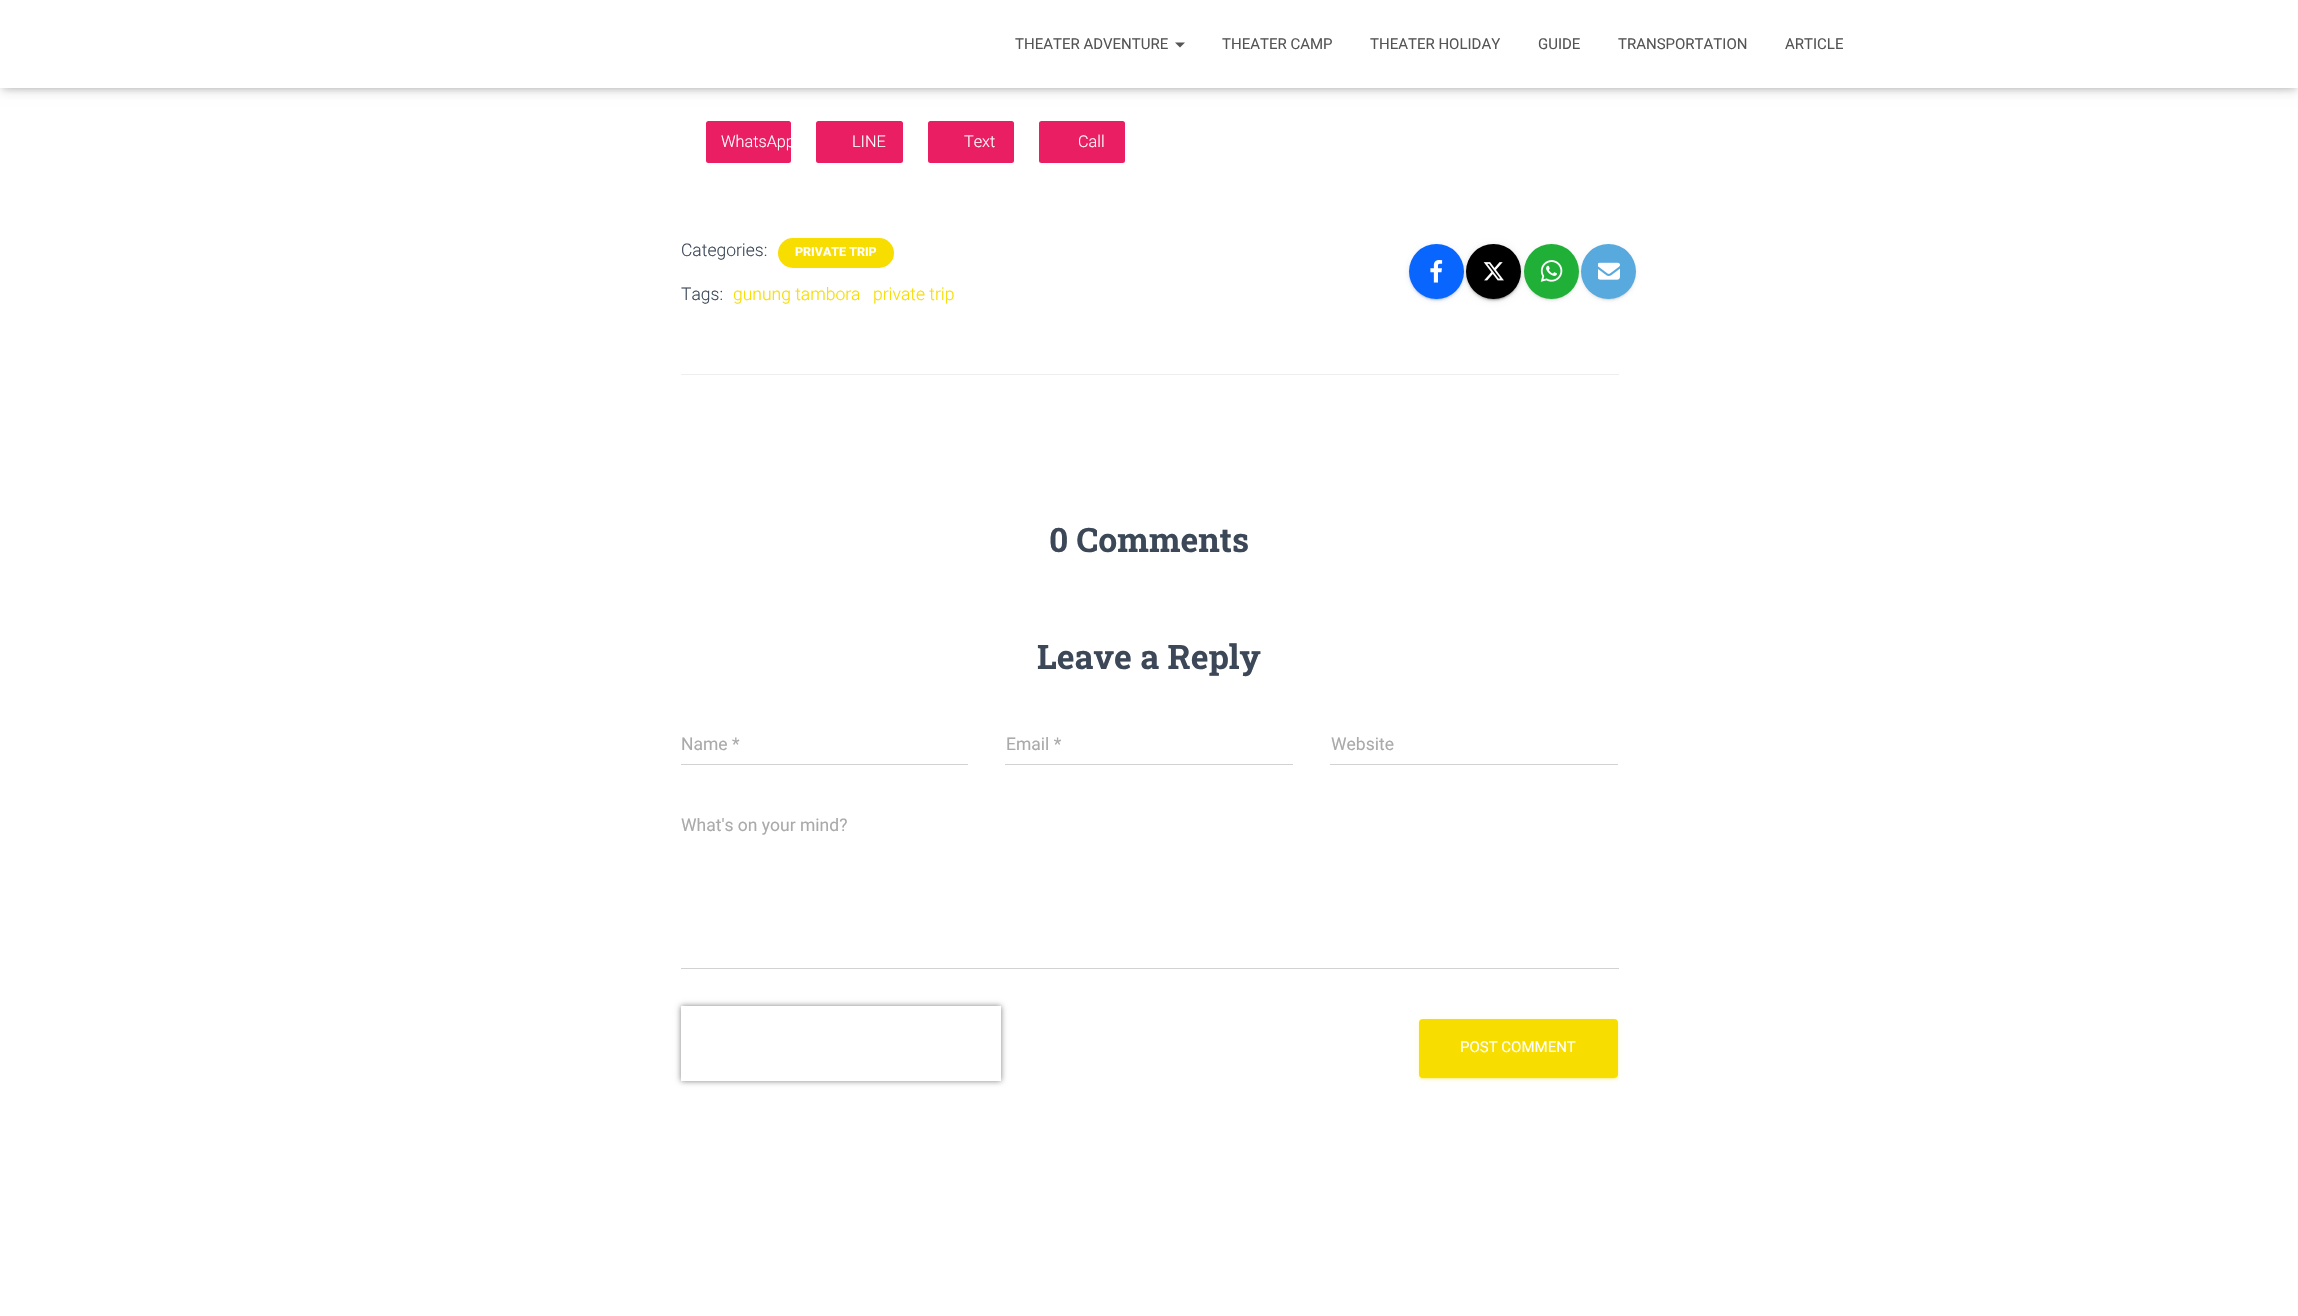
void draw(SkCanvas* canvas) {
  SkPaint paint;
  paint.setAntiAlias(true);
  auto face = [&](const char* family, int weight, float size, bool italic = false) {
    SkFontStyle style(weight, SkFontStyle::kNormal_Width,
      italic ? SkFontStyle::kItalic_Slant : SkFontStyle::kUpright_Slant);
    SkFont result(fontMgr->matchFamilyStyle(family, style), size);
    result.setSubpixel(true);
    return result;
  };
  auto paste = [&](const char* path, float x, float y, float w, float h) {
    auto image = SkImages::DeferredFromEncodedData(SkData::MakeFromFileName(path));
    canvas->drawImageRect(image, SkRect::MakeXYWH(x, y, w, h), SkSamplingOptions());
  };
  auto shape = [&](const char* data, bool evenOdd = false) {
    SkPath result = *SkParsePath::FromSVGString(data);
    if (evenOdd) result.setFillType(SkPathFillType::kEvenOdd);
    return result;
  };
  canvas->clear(0xffffffff);
  paint.setColor(0x1a000000);
  paint.setMaskFilter(SkMaskFilter::MakeBlur(kNormal_SkBlurStyle, 3));
  canvas->drawRect(SkRect::MakeXYWH(3, 8, 2293, 82), paint);
  paint.setMaskFilter(nullptr);
  paint.setColor(0x1f000000);
  paint.setMaskFilter(SkMaskFilter::MakeBlur(kNormal_SkBlurStyle, 6));
  canvas->drawRect(SkRect::MakeXYWH(0, 1, 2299, 88), paint);
  paint.setMaskFilter(nullptr);
  paint.setColor(0x6b000000);
  paint.setMaskFilter(SkMaskFilter::MakeBlur(kNormal_SkBlurStyle, 6));
  canvas->drawRect(SkRect::MakeXYWH(8, 9, 2283, 72), paint);
  paint.setMaskFilter(nullptr);
  paint.setColor(0xffffffff);
  canvas->drawRect(SkRect::MakeXYWH(0, 0, 2298, 88), paint);
  paint.setColor(0xff555555);
  canvas->drawPath(shape("M1175 42.5H1185L1180 47.5Z"), paint);
  paint.setColor(0xffe91e63);
  canvas->drawRoundRect(SkRect::MakeXYWH(706, 121, 85, 42), 2.5f, 2.5f, paint);
  canvas->drawRoundRect(SkRect::MakeXYWH(816, 121, 87, 42), 2.5f, 2.5f, paint);
  canvas->drawRoundRect(SkRect::MakeXYWH(928, 121, 86, 42), 2.5f, 2.5f, paint);
  canvas->drawRoundRect(SkRect::MakeXYWH(1039, 121, 86, 42), 2.5f, 2.5f, paint);
  paint.setColor(0xfff7dd00);
  canvas->drawRoundRect(SkRect::MakeXYWH(778, 238, 116, 30), 15, 15, paint);
  paint.setColor(0x1f3b5998);
  paint.setMaskFilter(SkMaskFilter::MakeBlur(kNormal_SkBlurStyle, 3));
  canvas->drawRoundRect(SkRect::MakeXYWH(1409, 245, 55, 55), 27.5f, 27.5f, paint);
  paint.setMaskFilter(nullptr);
  paint.setColor(0x333b5998);
  paint.setMaskFilter(SkMaskFilter::MakeBlur(kNormal_SkBlurStyle, 0.5f));
  canvas->drawRoundRect(SkRect::MakeXYWH(1411, 250, 50, 50), 25, 25, paint);
  paint.setMaskFilter(nullptr);
  paint.setColor(0x243b5998);
  paint.setMaskFilter(SkMaskFilter::MakeBlur(kNormal_SkBlurStyle, 1));
  canvas->drawRoundRect(SkRect::MakeXYWH(1409, 246, 55, 55), 27.5f, 27.5f, paint);
  paint.setMaskFilter(nullptr);
  paint.setColor(0xff0866ff);
  canvas->drawCircle(1436.5f, 271.5f, 27.5f, paint);
  paste("img/1.png", 1430, 260, 13, 23);
  paint.setColor(0x1f000000);
  paint.setMaskFilter(SkMaskFilter::MakeBlur(kNormal_SkBlurStyle, 3));
  canvas->drawRoundRect(SkRect::MakeXYWH(1466, 245, 55, 55), 27.5f, 27.5f, paint);
  paint.setMaskFilter(nullptr);
  paint.setColor(0x33000000);
  paint.setMaskFilter(SkMaskFilter::MakeBlur(kNormal_SkBlurStyle, 0.5f));
  canvas->drawRoundRect(SkRect::MakeXYWH(1469, 250, 50, 50), 25, 25, paint);
  paint.setMaskFilter(nullptr);
  paint.setColor(0x24000000);
  paint.setMaskFilter(SkMaskFilter::MakeBlur(kNormal_SkBlurStyle, 1));
  canvas->drawRoundRect(SkRect::MakeXYWH(1466, 246, 55, 55), 27.5f, 27.5f, paint);
  paint.setMaskFilter(nullptr);
  paint.setColor(0xff000000);
  canvas->drawCircle(1493.5f, 271.5f, 27.5f, paint);
  paste("img/2.png", 1483, 262, 21, 19);
  paint.setColor(0x1f999999);
  paint.setMaskFilter(SkMaskFilter::MakeBlur(kNormal_SkBlurStyle, 3));
  canvas->drawRoundRect(SkRect::MakeXYWH(1524, 245, 55, 55), 27.5f, 27.5f, paint);
  paint.setMaskFilter(nullptr);
  paint.setColor(0x33999999);
  paint.setMaskFilter(SkMaskFilter::MakeBlur(kNormal_SkBlurStyle, 0.5f));
  canvas->drawRoundRect(SkRect::MakeXYWH(1526, 250, 50, 50), 25, 25, paint);
  paint.setMaskFilter(nullptr);
  paint.setColor(0x24999999);
  paint.setMaskFilter(SkMaskFilter::MakeBlur(kNormal_SkBlurStyle, 1));
  canvas->drawRoundRect(SkRect::MakeXYWH(1524, 246, 55, 55), 27.5f, 27.5f, paint);
  paint.setMaskFilter(nullptr);
  paint.setColor(0xff20b038);
  canvas->drawCircle(1551.5f, 271.5f, 27.5f, paint);
  paste("img/3.png", 1540, 260, 23, 22);
  paint.setColor(0x1f999999);
  paint.setMaskFilter(SkMaskFilter::MakeBlur(kNormal_SkBlurStyle, 3));
  canvas->drawRoundRect(SkRect::MakeXYWH(1581, 245, 55, 55), 27.5f, 27.5f, paint);
  paint.setMaskFilter(nullptr);
  paint.setColor(0x33999999);
  paint.setMaskFilter(SkMaskFilter::MakeBlur(kNormal_SkBlurStyle, 0.5f));
  canvas->drawRoundRect(SkRect::MakeXYWH(1584, 250, 50, 50), 25, 25, paint);
  paint.setMaskFilter(nullptr);
  paint.setColor(0x24999999);
  paint.setMaskFilter(SkMaskFilter::MakeBlur(kNormal_SkBlurStyle, 1));
  canvas->drawRoundRect(SkRect::MakeXYWH(1581, 246, 55, 55), 27.5f, 27.5f, paint);
  paint.setMaskFilter(nullptr);
  paint.setColor(0xff58a9de);
  canvas->drawCircle(1608.5f, 271.5f, 27.5f, paint);
  paste("img/4.png", 1598, 262, 22, 18);
  {
    const struct { float x, y, w, h; SkColor color; } items[] = {
      {681, 374, 938, 1, 0xffeeeeee},
      {681, 764, 287, 1, 0xffd2d2d2},
      {1005, 764, 288, 1, 0xffd2d2d2},
      {1330, 764, 288, 1, 0xffd2d2d2},
      {681, 968, 938, 1, 0xffd2d2d2},
    };
    for (auto [x, y, w, h, color] : items) {
      paint.setColor(color);
      canvas->drawRect(SkRect::MakeXYWH(x, y, w, h), paint);
    }
  }
  canvas->save();
  canvas->clipPath(shape("M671 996H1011V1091H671ZM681 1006H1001V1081H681Z", true), true);
  paint.setColor(0xff808080);
  paint.setMaskFilter(SkMaskFilter::MakeBlur(kNormal_SkBlurStyle, 3));
  canvas->drawRect(SkRect::MakeXYWH(681, 1006, 320, 75), paint);
  paint.setMaskFilter(nullptr);
  canvas->restore();
  paint.setColor(0x1ff7dd00);
  paint.setMaskFilter(SkMaskFilter::MakeBlur(kNormal_SkBlurStyle, 3));
  canvas->drawRoundRect(SkRect::MakeXYWH(1419, 1020, 199, 59), 4, 4, paint);
  paint.setMaskFilter(nullptr);
  paint.setColor(0x33f7dd00);
  paint.setMaskFilter(SkMaskFilter::MakeBlur(kNormal_SkBlurStyle, 0.5f));
  canvas->drawRoundRect(SkRect::MakeXYWH(1421, 1025, 194, 54), 1, 1, paint);
  paint.setMaskFilter(nullptr);
  paint.setColor(0x24f7dd00);
  paint.setMaskFilter(SkMaskFilter::MakeBlur(kNormal_SkBlurStyle, 1));
  canvas->drawRoundRect(SkRect::MakeXYWH(1419, 1021, 199, 59), 4, 4, paint);
  paint.setMaskFilter(nullptr);
  paint.setColor(0xfff7dd00);
  canvas->drawRoundRect(SkRect::MakeXYWH(1419, 1019, 199, 59), 4, 4, paint);
  auto f0 = face("Roboto", 400, 15);
  paint.setColor(0xff555555);
  {
    const struct { const char* s; float x, y; } items[] = {
      {"THEATER ADVENTURE", 1015, 49},
      {"THEATER CAMP", 1222, 49},
      {"THEATER HOLIDAY", 1370, 49},
      {"GUIDE", 1538, 49},
      {"TRANSPORTATION", 1618, 49},
      {"ARTICLE", 1785, 49},
    };
    for (auto [s, x, y] : items) {
      canvas->drawString(s, x, y, f0, paint);
    }
  }
  auto f1 = face("Roboto", 300, 16.25f);
  paint.setColor(0xffffffff);
  {
    const struct { const char* s; float x, y; } items[] = {
      {"WhatsApp", 721, 147},
      {"LINE", 852, 147},
      {"Text", 964, 147},
      {"Call", 1078, 147},
    };
    for (auto [s, x, y] : items) {
      canvas->drawString(s, x, y, f1, paint);
    }
  }
  auto f2 = face("Roboto", 300, 17.5f);
  paint.setColor(0xff3c4858);
  canvas->drawString("Categories:", 681, 256, f2, paint);
  auto f3 = face("Roboto", 700, 12.5f);
  paint.setColor(0xffffffff);
  canvas->drawString("PRIVATE TRIP", 795, 256, f3, paint);
  paint.setColor(0xff3c4858);
  canvas->drawString("Tags:", 681, 300, f2, paint);
  paint.setColor(0xfff7dd00);
  canvas->drawString("gunung tambora", 733, 300, f2, paint);
  canvas->drawString("private trip", 873, 300, f2, paint);
  auto f4 = face("Roboto Slab", 700, 33.75f);
  paint.setColor(0xff3c4858);
  canvas->drawString("0 Comments", 1049, 552, f4, paint);
  canvas->drawString("Leave a Reply", 1037, 669, f4, paint);
  auto f5 = face("Roboto", 400, 17.5f);
  paint.setColor(0xffaaaaaa);
  {
    const struct { const char* s; float x, y; } items[] = {
      {"Name *", 681, 750},
      {"Email *", 1006, 750},
      {"Website", 1331, 750},
      {"What's on your mind?", 681, 831},
    };
    for (auto [s, x, y] : items) {
      canvas->drawString(s, x, y, f5, paint);
    }
  }
  paint.setColor(0xffffffff);
  canvas->drawString("POST COMMENT", 1460, 1052, f0, paint);
}
